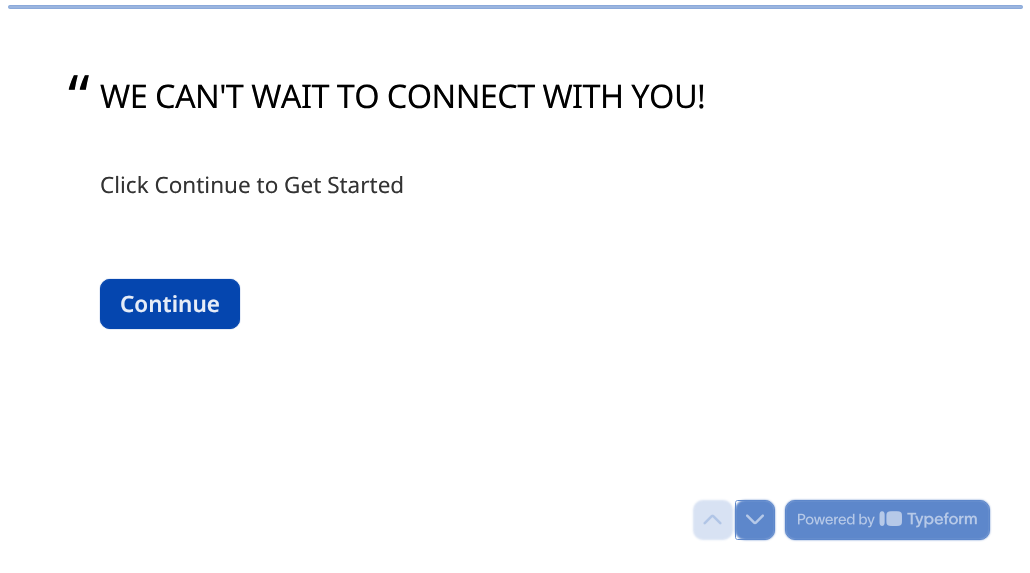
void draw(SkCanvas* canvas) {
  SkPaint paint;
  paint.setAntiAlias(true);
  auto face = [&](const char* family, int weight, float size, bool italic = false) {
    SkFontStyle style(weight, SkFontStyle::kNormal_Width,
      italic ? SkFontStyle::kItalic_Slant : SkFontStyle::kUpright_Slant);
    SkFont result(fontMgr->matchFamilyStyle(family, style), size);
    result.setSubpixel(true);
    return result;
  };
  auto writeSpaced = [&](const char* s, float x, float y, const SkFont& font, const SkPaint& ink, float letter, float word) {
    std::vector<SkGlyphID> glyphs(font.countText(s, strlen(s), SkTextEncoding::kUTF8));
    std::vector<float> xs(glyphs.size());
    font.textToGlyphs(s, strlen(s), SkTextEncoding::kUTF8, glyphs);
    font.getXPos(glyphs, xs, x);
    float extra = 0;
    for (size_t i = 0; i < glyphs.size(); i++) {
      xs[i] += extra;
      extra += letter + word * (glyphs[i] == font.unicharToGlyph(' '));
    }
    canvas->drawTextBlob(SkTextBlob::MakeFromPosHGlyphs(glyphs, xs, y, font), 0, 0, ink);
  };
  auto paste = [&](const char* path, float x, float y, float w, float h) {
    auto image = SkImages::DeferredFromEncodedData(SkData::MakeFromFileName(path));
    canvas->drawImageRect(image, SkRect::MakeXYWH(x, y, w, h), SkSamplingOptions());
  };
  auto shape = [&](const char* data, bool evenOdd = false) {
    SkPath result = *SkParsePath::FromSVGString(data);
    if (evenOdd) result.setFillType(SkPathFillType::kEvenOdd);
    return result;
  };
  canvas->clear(0xffffffff);
  paint.setColor(0xff9bb5df);
  canvas->drawRoundRect(SkRect::MakeXYWH(8, 5, 1015, 4), 2, 2, paint);
  paint.setStroke(true);
  paint.setStrokeWidth(1);
  paint.setColor(0x1a0445af);
  canvas->drawRoundRect(SkRect::MakeXYWH(8.5f, 5.5f, 1014, 3), 1.5f, 1.5f, paint);
  paint.setColor(0xff0546af);
  canvas->drawRoundRect(SkRect::MakeXYWH(100.5f, 279.5f, 139, 49), 9.5f, 9.5f, paint);
  paint.setStroke(false);
  paint.setMaskFilter(SkMaskFilter::MakeBlur(kNormal_SkBlurStyle, 0.5f));
  canvas->drawRoundRect(SkRect::MakeXYWH(100, 279, 140, 50), 10, 10, paint);
  paint.setMaskFilter(nullptr);
  paint.setColor(0x3d5d87cb);
  paint.setMaskFilter(SkMaskFilter::MakeBlur(kNormal_SkBlurStyle, 1));
  canvas->drawRoundRect(SkRect::MakeXYWH(693, 500, 40, 40), 10, 10, paint);
  paint.setMaskFilter(nullptr);
  paste("img/1.png", 703, 514, 19, 11);
  paint.setStroke(true);
  paint.setColor(0xff5d87cb);
  canvas->drawPath(shape("M737.5 500.5H765C770 500.5 774.5 505 774.5 510V530C774.5 535 770 539.5 765 539.5H737.5C736.5 539.5 735.5 538.5 735.5 537.5V502.5C735.5 501.5 736.5 500.5 737.5 500.5Z"), paint);
  paint.setStroke(false);
  paint.setMaskFilter(SkMaskFilter::MakeBlur(kNormal_SkBlurStyle, 1));
  canvas->drawRoundRect(SkRect::MakeXYWH(735, 500, 40, 40), 10, 10, paint);
  paint.setMaskFilter(nullptr);
  paste("img/2.png", 746, 514, 18, 11);
  paint.setStroke(true);
  canvas->drawRoundRect(SkRect::MakeXYWH(785.5f, 500.5f, 204, 39), 9.5f, 9.5f, paint);
  paint.setStroke(false);
  paint.setMaskFilter(SkMaskFilter::MakeBlur(kNormal_SkBlurStyle, 1));
  canvas->drawRoundRect(SkRect::MakeXYWH(785, 500, 205, 40), 10, 10, paint);
  paint.setMaskFilter(nullptr);
  paste("img/3.png", 798, 511, 179, 17);
  auto f0 = face("Noto Sans", 400, 60);
  paint.setColor(0xff000000);
  writeSpaced("“", 68, 118, f0, paint, -2, 0);
  auto f1 = face("Noto Sans", 400, 32.5f);
  writeSpaced("WE CAN'T WAIT TO CONNECT WITH YOU!", 100, 108, f1, paint, -0.6f, 0);
  auto f2 = face("Noto Sans", 400, 22.5f);
  paint.setColor(0xff333333);
  canvas->drawString("Click Continue to Get Started", 100, 193, f2, paint);
  auto f3 = face("Noto Sans", 600, 22.5f);
  paint.setColor(0xffe6ecf7);
  canvas->drawString("Continue", 120, 312, f3, paint);
}
